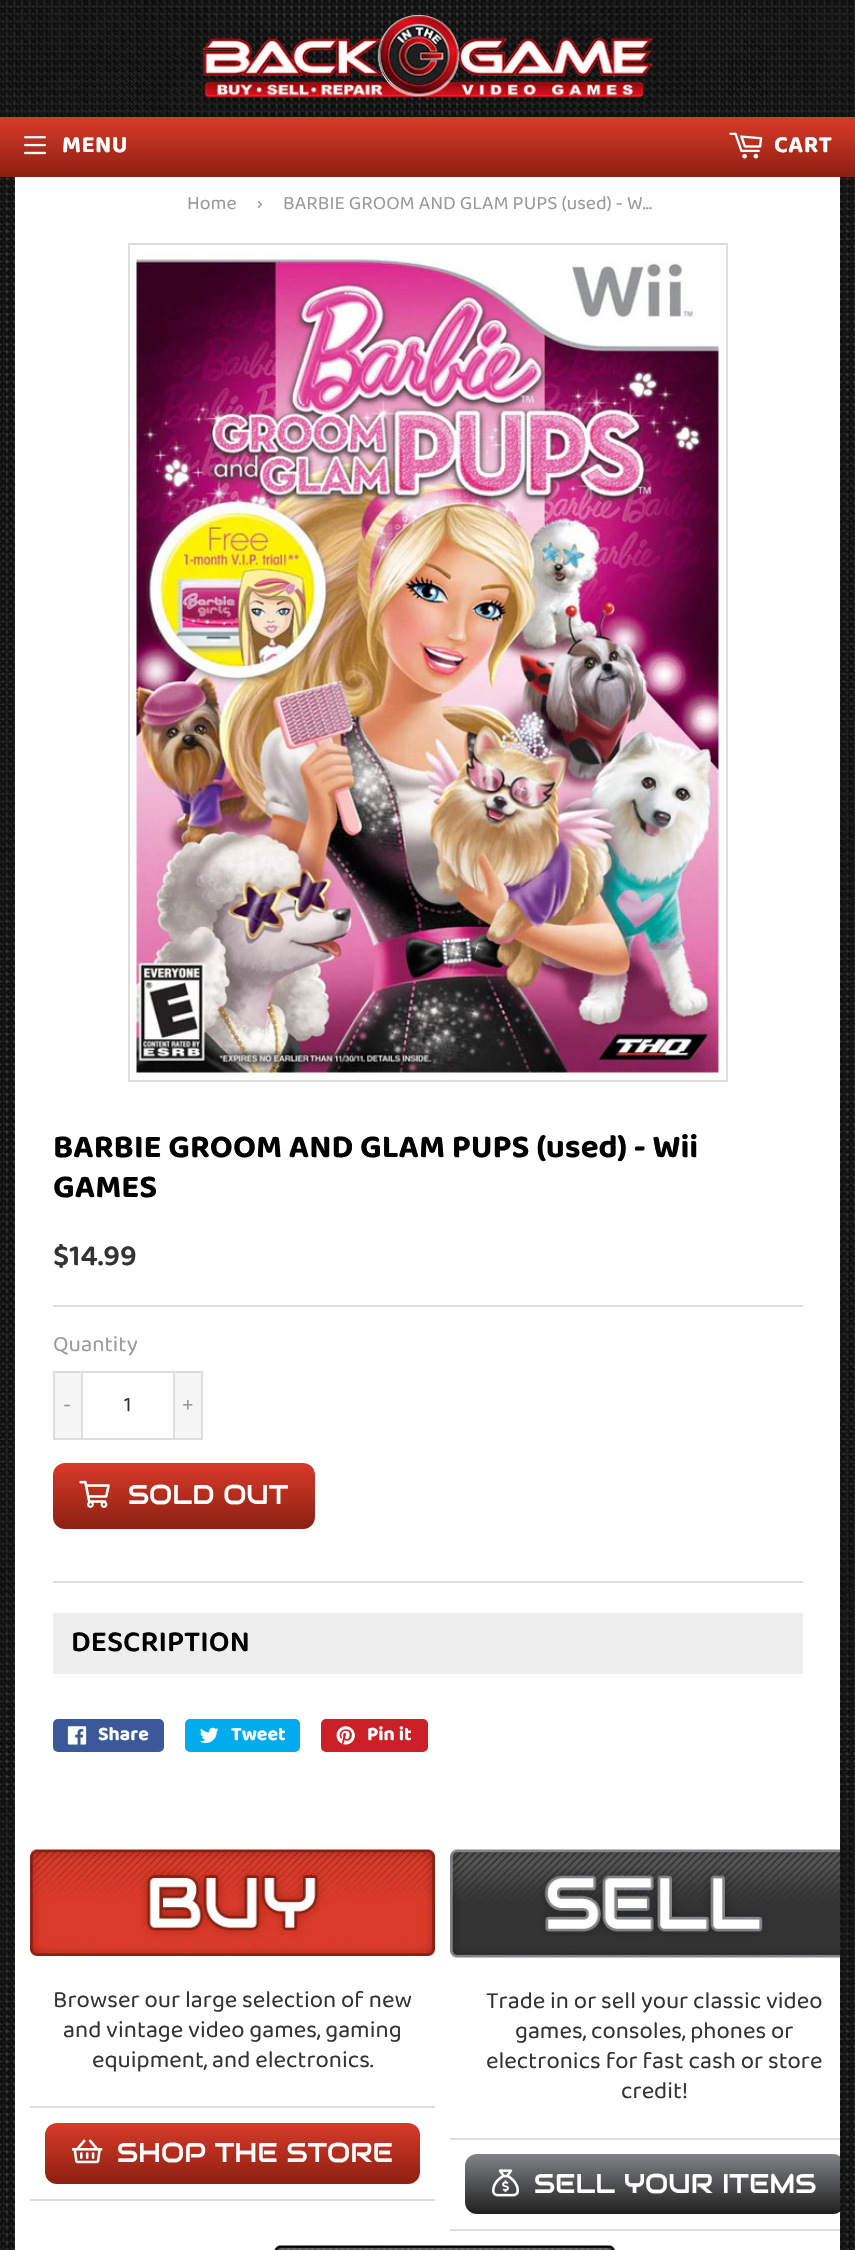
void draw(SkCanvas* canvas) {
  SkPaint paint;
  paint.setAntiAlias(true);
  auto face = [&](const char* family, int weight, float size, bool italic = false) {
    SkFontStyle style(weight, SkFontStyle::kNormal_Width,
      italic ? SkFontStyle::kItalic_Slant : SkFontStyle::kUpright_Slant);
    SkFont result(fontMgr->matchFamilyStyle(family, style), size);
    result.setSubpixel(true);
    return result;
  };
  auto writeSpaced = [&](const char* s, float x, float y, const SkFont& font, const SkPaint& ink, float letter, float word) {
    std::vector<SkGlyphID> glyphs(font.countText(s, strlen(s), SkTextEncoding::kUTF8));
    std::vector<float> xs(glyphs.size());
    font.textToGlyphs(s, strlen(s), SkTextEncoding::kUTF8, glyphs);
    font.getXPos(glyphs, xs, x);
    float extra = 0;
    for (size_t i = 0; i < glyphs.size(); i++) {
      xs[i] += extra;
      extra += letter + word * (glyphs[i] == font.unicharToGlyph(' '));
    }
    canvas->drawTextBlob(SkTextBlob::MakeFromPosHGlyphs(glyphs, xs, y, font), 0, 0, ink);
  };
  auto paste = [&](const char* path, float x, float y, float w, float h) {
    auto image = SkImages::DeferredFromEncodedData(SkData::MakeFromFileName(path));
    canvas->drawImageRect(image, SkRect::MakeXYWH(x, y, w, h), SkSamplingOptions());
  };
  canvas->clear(0xffffffff);
  paste("img/1.png", 0, 0, 855, 2250);
  paste("img/2.png", 202, 15, 451, 83);
  {
    const SkColor colors[] = {0xffd93a29, 0xff8c2011};
    const float stops[] = {0, 1};
    const SkPoint ends[] = {{428, 117}, {428, 177}};
    paint.setShader(SkGradientShader::MakeLinear(ends, colors, stops, 2, SkTileMode::kClamp));
    paint.setAlpha(255);
  }
  canvas->drawRect(SkRect::MakeXYWH(0, 117, 855, 60), paint);
  paste("img/3.png", 24, 136, 22, 19);
  paste("img/4.png", 729, 132, 34, 27);
  paint.setShader(nullptr);
  paint.setColor(0xffffffff);
  canvas->drawRect(SkRect::MakeXYWH(15, 177, 825, 2073), paint);
  paint.setStroke(true);
  paint.setStrokeWidth(2);
  paint.setColor(0xffdddddd);
  canvas->drawRect(SkRect::MakeXYWH(129, 244, 598, 837), paint);
  paste("img/5.png", 136, 253, 583, 820);
  paint.setStroke(false);
  canvas->drawRect(SkRect::MakeXYWH(53, 1305, 750, 2), paint);
  canvas->drawRect(SkRect::MakeXYWH(53, 1581, 750, 2), paint);
  paint.setStroke(true);
  canvas->drawRect(SkRect::MakeXYWH(54, 1372, 148, 67), paint);
  paint.setStroke(false);
  paint.setColor(0xfff5f5f5);
  canvas->drawRect(SkRect::MakeXYWH(54, 1372, 28, 67), paint);
  paint.setStroke(true);
  paint.setColor(0xffdddddd);
  canvas->drawRect(SkRect::MakeXYWH(54, 1372, 28, 67), paint);
  paint.setStroke(false);
  paint.setColor(0xfff5f5f5);
  canvas->drawRect(SkRect::MakeXYWH(174, 1372, 28, 67), paint);
  paint.setStroke(true);
  paint.setColor(0xffdddddd);
  canvas->drawRect(SkRect::MakeXYWH(174, 1372, 28, 67), paint);
  paint.setStroke(false);
  {
    const SkColor colors[] = {0xffd93a29, 0xff8c2011};
    const float stops[] = {0, 1};
    const SkPoint ends[] = {{184, 1463}, {184, 1529}};
    paint.setShader(SkGradientShader::MakeLinear(ends, colors, stops, 2, SkTileMode::kClamp));
    paint.setAlpha(255);
  }
  canvas->drawRoundRect(SkRect::MakeXYWH(53, 1463, 262, 66), 12, 12, paint);
  paste("img/6.png", 79, 1480, 31, 28);
  paint.setShader(nullptr);
  paint.setColor(0xffeeeeee);
  canvas->drawRect(SkRect::MakeXYWH(53, 1613, 750, 61), paint);
  paint.setColor(0xff3b5998);
  canvas->drawRoundRect(SkRect::MakeXYWH(53, 1719, 111, 33), 5, 5, paint);
  paste("img/7.png", 67, 1726, 20, 19);
  paint.setColor(0xff00aced);
  canvas->drawRoundRect(SkRect::MakeXYWH(185, 1719, 115, 33), 5, 5, paint);
  paste("img/8.png", 200, 1727, 19, 16);
  paint.setColor(0xffcb2027);
  canvas->drawRoundRect(SkRect::MakeXYWH(321, 1719, 107, 33), 5, 5, paint);
  paste("img/9.png", 336, 1726, 19, 19);
  paste("img/10.png", 30, 1849, 405, 107);
  paint.setColor(0xffdddddd);
  canvas->drawRect(SkRect::MakeXYWH(30, 2106, 405, 2), paint);
  canvas->drawRect(SkRect::MakeXYWH(30, 2199, 405, 2), paint);
  {
    const SkColor colors[] = {0xffd93a29, 0xff8c2011};
    const float stops[] = {0, 1};
    const SkPoint ends[] = {{233, 2123}, {233, 2184}};
    paint.setShader(SkGradientShader::MakeLinear(ends, colors, stops, 2, SkTileMode::kClamp));
    paint.setAlpha(255);
  }
  canvas->drawRoundRect(SkRect::MakeXYWH(45, 2123, 375, 61), 12, 12, paint);
  paste("img/11.png", 72, 2139, 31, 25);
  paste("img/12.png", 450, 1849, 390, 109);
  paint.setShader(nullptr);
  paint.setColor(0xffdddddd);
  canvas->drawRect(SkRect::MakeXYWH(450, 2138, 390, 2), paint);
  canvas->drawRect(SkRect::MakeXYWH(450, 2229, 390, 2), paint);
  canvas->save();
  canvas->clipRect(SkRect::MakeXYWH(15, 177, 825, 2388));
  {
    const SkColor colors[] = {0xff828386, 0xff1f1f1f};
    const float stops[] = {0, 1};
    const SkPoint ends[] = {{655, 2154}, {655, 2214}};
    paint.setShader(SkGradientShader::MakeLinear(ends, colors, stops, 2, SkTileMode::kClamp));
    paint.setAlpha(255);
  }
  canvas->drawRoundRect(SkRect::MakeXYWH(465, 2154, 380, 60), 12, 12, paint);
  canvas->restore();
  paste("img/13.png", 492, 2169, 27, 28);
  paste("img/14.png", 274, 2245, 341, 5);
  auto f0 = face("Baloo 2", 700, 24);
  paint.setShader(nullptr);
  paint.setColor(0xffffffff);
  writeSpaced("MENU", 62, 152, f0, paint, 0.5f, 0);
  writeSpaced("CART", 774, 152, f0, paint, 0.5f, 0);
  auto f1 = face("Baloo 2", 400, 19.5f);
  paint.setColor(0xff999999);
  {
    const struct { const char* s; float x, y; } items[] = {
      {"Home", 187, 209},
      {"›", 257, 209},
      {"BARBIE GROOM AND GLAM PUPS (used) - W…", 283, 209},
    };
    for (auto [s, x, y] : items) {
      canvas->drawString(s, x, y, f1, paint);
    }
  }
  auto f2 = face("Baloo 2", 700, 33);
  paint.setColor(0xff010101);
  canvas->drawString("BARBIE GROOM AND GLAM PUPS (used) - Wii", 53, 1157, f2, paint);
  canvas->drawString("GAMES", 53, 1197, f2, paint);
  auto f3 = face("Baloo 2", 600, 30);
  paint.setColor(0xff333333);
  canvas->drawString("$14.99", 53, 1265, f3, paint);
  auto f4 = face("Baloo 2", 400, 22.5f);
  paint.setColor(0xff999999);
  canvas->drawString("Quantity", 53, 1351, f4, paint);
  auto f5 = face("Baloo 2", 400, 21);
  canvas->drawString("-", 63, 1411, f5, paint);
  paint.setColor(0xff333333);
  canvas->drawString("1", 124, 1411, f5, paint);
  paint.setColor(0xff999999);
  canvas->drawString("+", 182, 1411, f5, paint);
  auto f6 = face("Audiowide", 400, 27);
  paint.setColor(0xffffffff);
  canvas->drawString("SOLD OUT", 128, 1504, f6, paint);
  paint.setColor(0xff010101);
  canvas->drawString("DESCRIPTION", 71, 1651, f3, paint);
  auto f7 = face("Baloo 2", 700, 19.5f);
  paint.setColor(0xffffffff);
  {
    const struct { const char* s; float x, y; } items[] = {
      {"Share", 98, 1740},
      {"Tweet", 231, 1740},
      {"Pin it", 367, 1740},
    };
    for (auto [s, x, y] : items) {
      canvas->drawString(s, x, y, f7, paint);
    }
  }
  auto f8 = face("Baloo 2", 400, 24);
  paint.setColor(0xff333333);
  {
    const struct { const char* s; float x, y; } items[] = {
      {"Browser our large selection of new", 53, 2007},
      {"and vintage video games, gaming", 63, 2037},
      {"equipment, and electronics.", 92, 2067},
    };
    for (auto [s, x, y] : items) {
      canvas->drawString(s, x, y, f8, paint);
    }
  }
  paint.setColor(0xffffffff);
  canvas->drawString("SHOP THE STORE", 117, 2162, f6, paint);
  paint.setColor(0xff333333);
  {
    const struct { const char* s; float x, y; } items[] = {
      {"Trade in or sell your classic video", 486, 2008},
      {"games, consoles, phones or", 515, 2038},
      {"electronics for fast cash or store", 486, 2068},
      {"credit!", 621, 2098},
    };
    for (auto [s, x, y] : items) {
      canvas->drawString(s, x, y, f8, paint);
    }
  }
  paint.setColor(0xffffffff);
  canvas->drawString("SELL YOUR ITEMS", 534, 2193, f6, paint);
}
